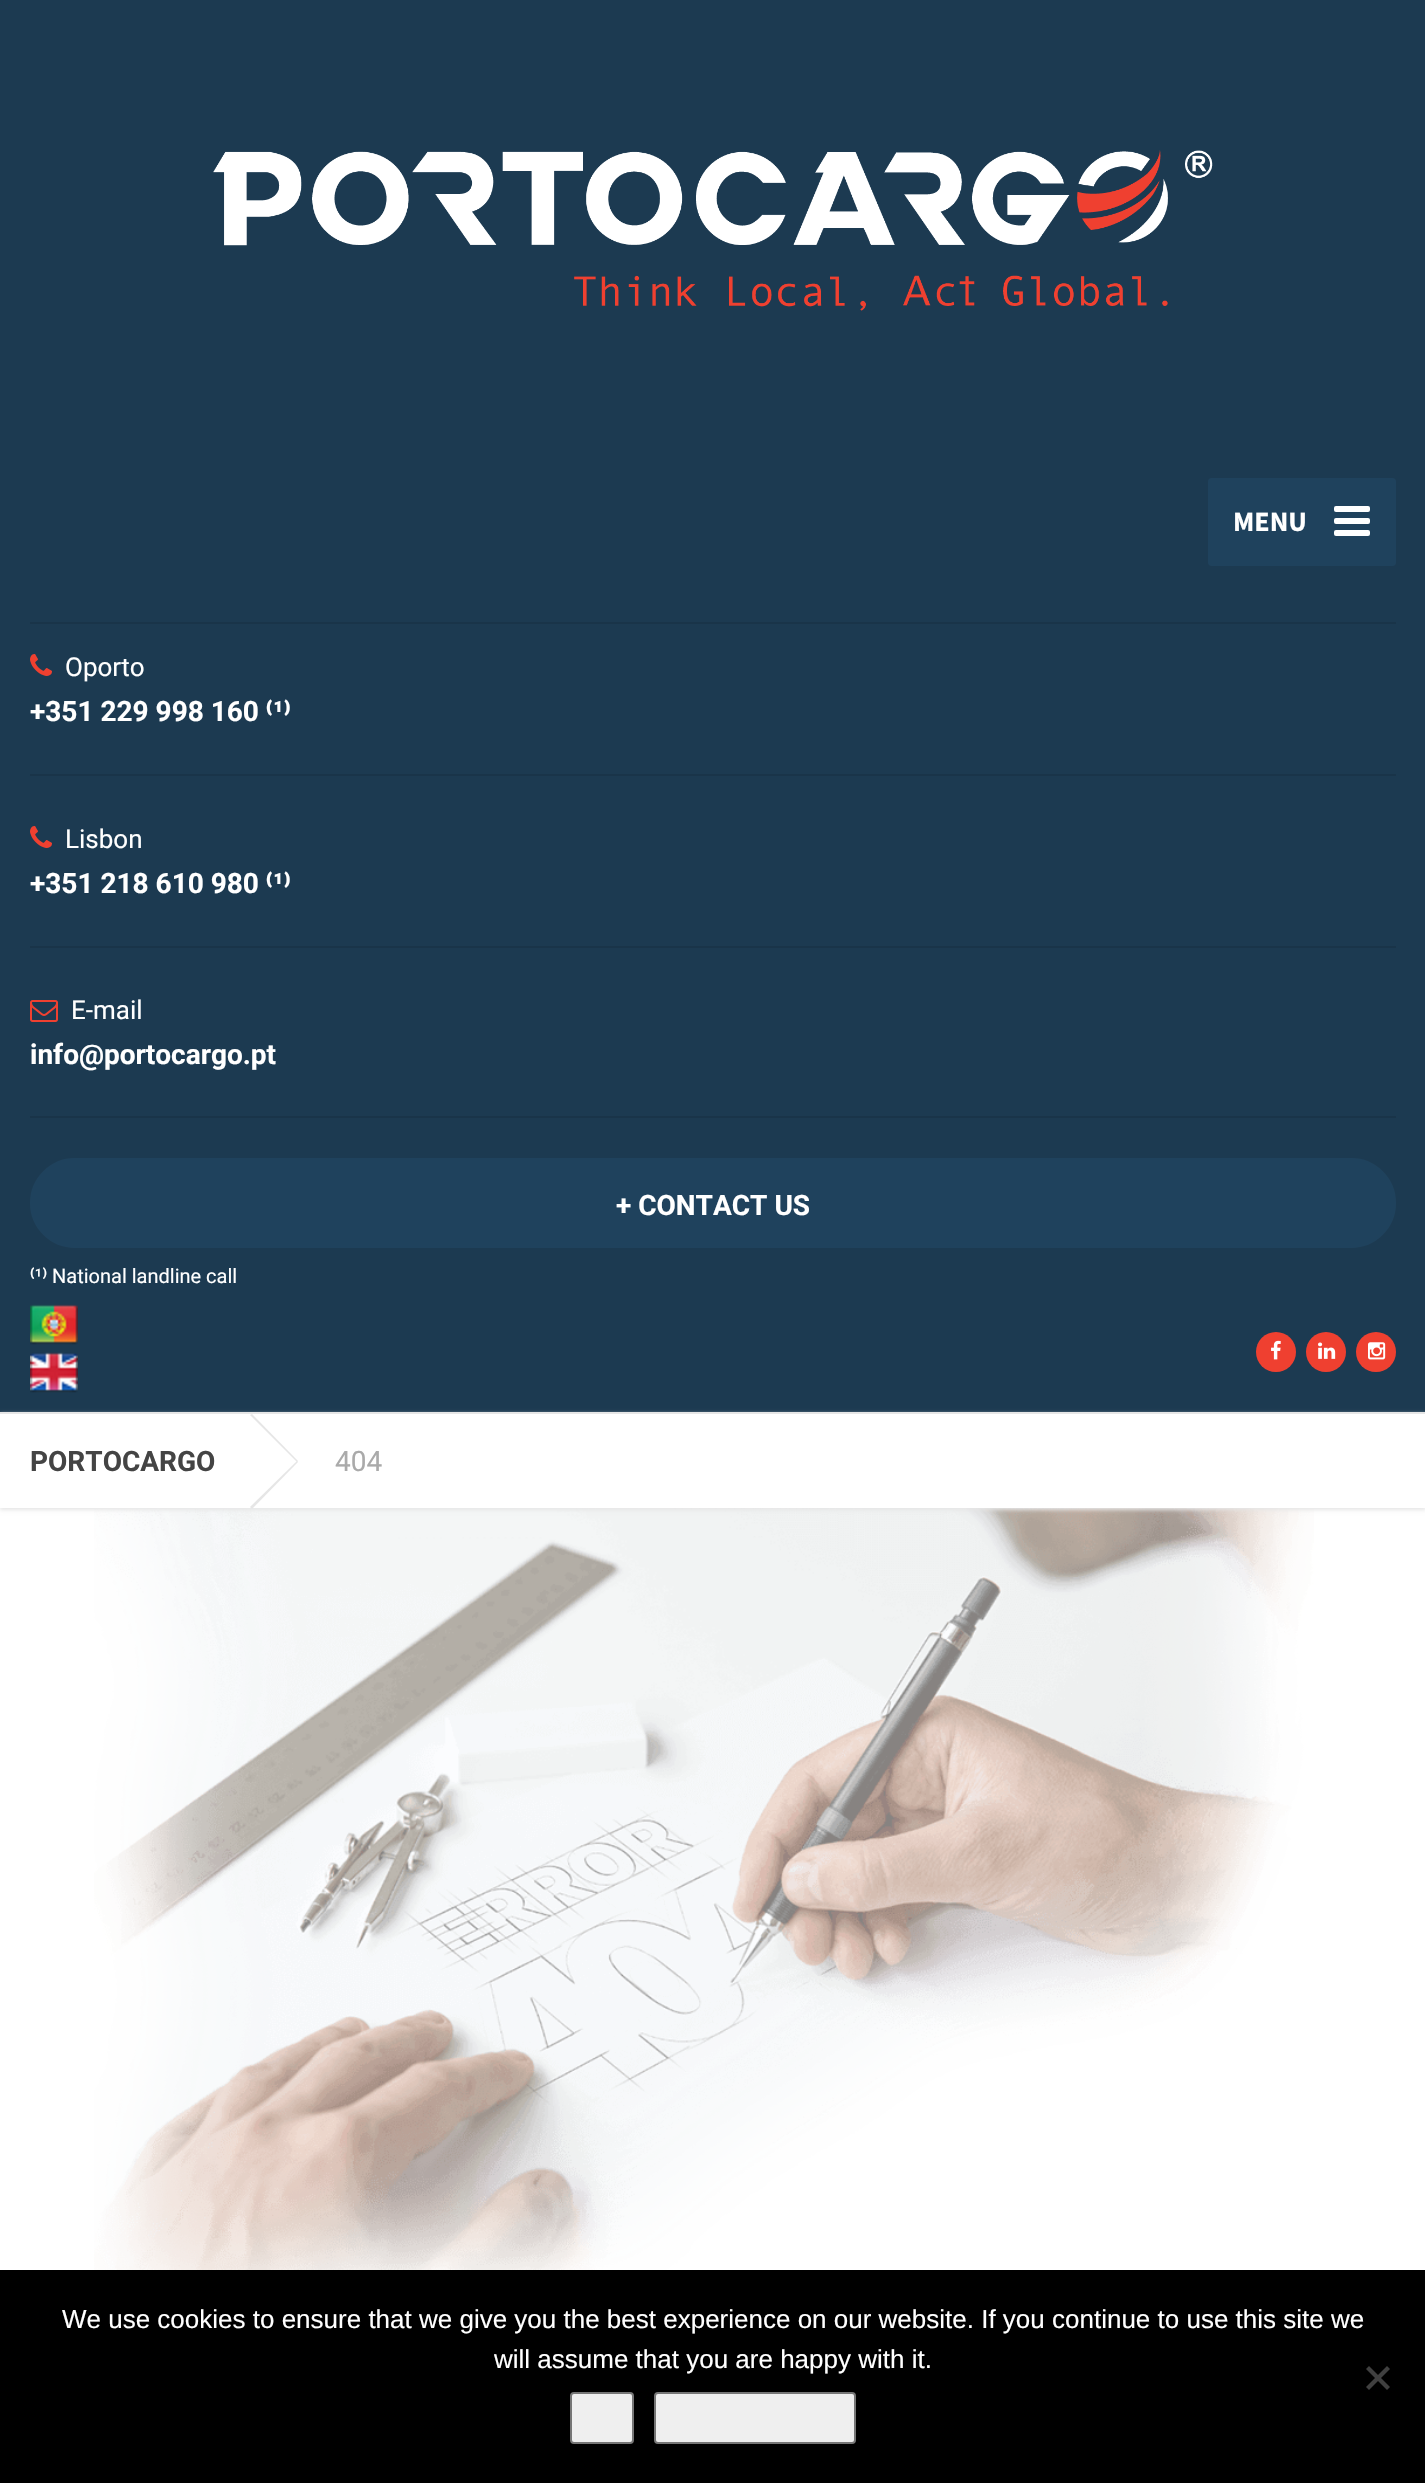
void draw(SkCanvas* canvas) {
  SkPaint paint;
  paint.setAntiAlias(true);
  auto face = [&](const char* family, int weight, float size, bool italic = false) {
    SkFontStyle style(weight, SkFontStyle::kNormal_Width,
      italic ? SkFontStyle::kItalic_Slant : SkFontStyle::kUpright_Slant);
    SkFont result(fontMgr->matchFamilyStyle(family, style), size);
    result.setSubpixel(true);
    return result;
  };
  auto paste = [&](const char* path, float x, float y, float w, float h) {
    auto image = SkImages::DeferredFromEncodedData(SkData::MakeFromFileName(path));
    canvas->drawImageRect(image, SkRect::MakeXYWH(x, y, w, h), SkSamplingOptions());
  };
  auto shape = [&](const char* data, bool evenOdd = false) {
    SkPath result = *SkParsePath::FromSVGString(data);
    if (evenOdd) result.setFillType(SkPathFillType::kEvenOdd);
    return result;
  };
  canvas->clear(0xffffffff);
  paint.setColor(0xff1c3a51);
  canvas->drawRect(SkRect::MakeXYWH(0, 0, 1425, 1412), paint);
  paint.setColor(0xff193449);
  canvas->drawRect(SkRect::MakeXYWH(30, 622, 1366, 2), paint);
  paste("img/1.png", 213, 150, 1000, 161);
  paint.setColor(0xff1f425d);
  canvas->drawRoundRect(SkRect::MakeXYWH(1208, 478, 188, 88), 4, 4, paint);
  paint.setColor(0xffffffff);
  canvas->drawRoundRect(SkRect::MakeXYWH(1334, 506, 36, 6), 2, 2, paint);
  canvas->drawRoundRect(SkRect::MakeXYWH(1334, 518, 36, 6), 2, 2, paint);
  canvas->drawRoundRect(SkRect::MakeXYWH(1334, 530, 36, 6), 2, 2, paint);
  paint.setColor(0xff193449);
  canvas->drawRect(SkRect::MakeXYWH(30, 774, 1366, 2), paint);
  paste("img/2.png", 30, 654, 22, 22);
  canvas->drawRect(SkRect::MakeXYWH(30, 946, 1366, 2), paint);
  paste("img/2.png", 30, 826, 22, 22);
  canvas->drawRect(SkRect::MakeXYWH(30, 1116, 1366, 2), paint);
  paste("img/3.png", 30, 1000, 28, 22);
  paint.setColor(0xff1f425d);
  canvas->drawRoundRect(SkRect::MakeXYWH(31, 1159, 1364, 88), 44, 44, paint);
  paint.setStroke(true);
  paint.setStrokeWidth(2);
  canvas->drawRoundRect(SkRect::MakeXYWH(31, 1159, 1364, 88), 44, 44, paint);
  paste("img/4.png", 30, 1304, 48, 41);
  paste("img/5.png", 30, 1352, 48, 41);
  paint.setStroke(false);
  paint.setColor(0xffef4030);
  canvas->drawCircle(1276, 1352, 20, paint);
  paste("img/6.png", 1271, 1340, 10, 20);
  canvas->drawCircle(1326, 1352, 20, paint);
  paste("img/7.png", 1318, 1342, 18, 17);
  canvas->drawCircle(1376, 1352, 20, paint);
  paste("img/8.png", 1368, 1342, 18, 18);
  paste("img/9.png", 94, 1508, 1220, 762);
  canvas->save();
  canvas->clipPath(shape("M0 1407H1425V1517H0ZM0 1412H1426V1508H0Z", true), true);
  paint.setColor(0xffe6e6e6);
  paint.setMaskFilter(SkMaskFilter::MakeBlur(kNormal_SkBlurStyle, 2));
  canvas->drawRect(SkRect::MakeXYWH(0, 1414, 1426, 96), paint);
  paint.setMaskFilter(nullptr);
  canvas->restore();
  canvas->drawRect(SkRect::MakeXYWH(0, 1412, 1425, 2), paint);
  canvas->drawPath(shape("M250 1415L252 1414L298 1461L297 1462Z"), paint);
  canvas->drawPath(shape("M297 1461L298 1462L252 1509L250 1507Z"), paint);
  paint.setColor(0xff000000);
  canvas->drawRect(SkRect::MakeXYWH(0, 2270, 1425, 213), paint);
  paint.setColor(0xff404040);
  canvas->drawPath(shape("M1387 2366L1390 2369L1369 2390L1366 2387Z"), paint);
  canvas->drawPath(shape("M1366 2369L1369 2366L1390 2387L1387 2390Z"), paint);
  paint.setColor(0xffefefef);
  canvas->drawRoundRect(SkRect::MakeXYWH(571, 2393, 62, 50), 3, 3, paint);
  paint.setStroke(true);
  paint.setColor(0xff767676);
  canvas->drawRoundRect(SkRect::MakeXYWH(571, 2393, 62, 50), 3, 3, paint);
  paint.setStroke(false);
  paint.setColor(0xffefefef);
  canvas->drawRoundRect(SkRect::MakeXYWH(655, 2393, 200, 50), 3, 3, paint);
  paint.setStroke(true);
  paint.setColor(0xff767676);
  canvas->drawRoundRect(SkRect::MakeXYWH(655, 2393, 200, 50), 3, 3, paint);
  auto f0 = face("Source Sans Pro", 700, 28);
  paint.setStroke(false);
  paint.setColor(0xffffffff);
  canvas->drawString("MENU", 1233, 531, f0, paint);
  auto f1 = face("Roboto", 400, 26);
  canvas->drawString("Oporto", 65, 676, f1, paint);
  auto f2 = face("Roboto", 700, 28);
  canvas->drawString("+351 229 998 160 ⁽¹⁾", 30, 721, f2, paint);
  canvas->drawString("Lisbon", 65, 848, f1, paint);
  canvas->drawString("+351 218 610 980 ⁽¹⁾", 30, 893, f2, paint);
  canvas->drawString("E-mail", 71, 1019, f1, paint);
  canvas->drawString("info@portocargo.pt", 30, 1064, f2, paint);
  canvas->drawString("+ CONTACT US", 616, 1215, f2, paint);
  auto f3 = face("Roboto", 400, 20);
  canvas->drawString("⁽¹⁾ National landline call", 30, 1283, f3, paint);
  paint.setColor(0xff444444);
  canvas->drawString("PORTOCARGO", 30, 1471, f2, paint);
  auto f4 = face("Roboto", 400, 28);
  paint.setColor(0xffaaaaaa);
  canvas->drawString("404", 335, 1471, f4, paint);
  auto f5 = face("Liberation Sans", 400, 26);
  paint.setColor(0xffffffff);
  canvas->drawString("We use cookies to ensure that we give you the best experience on our website. If you continue to use this site we", 62, 2328, f5, paint);
  canvas->drawString("will assume that you are happy with it.", 494, 2368, f5, paint);
}
